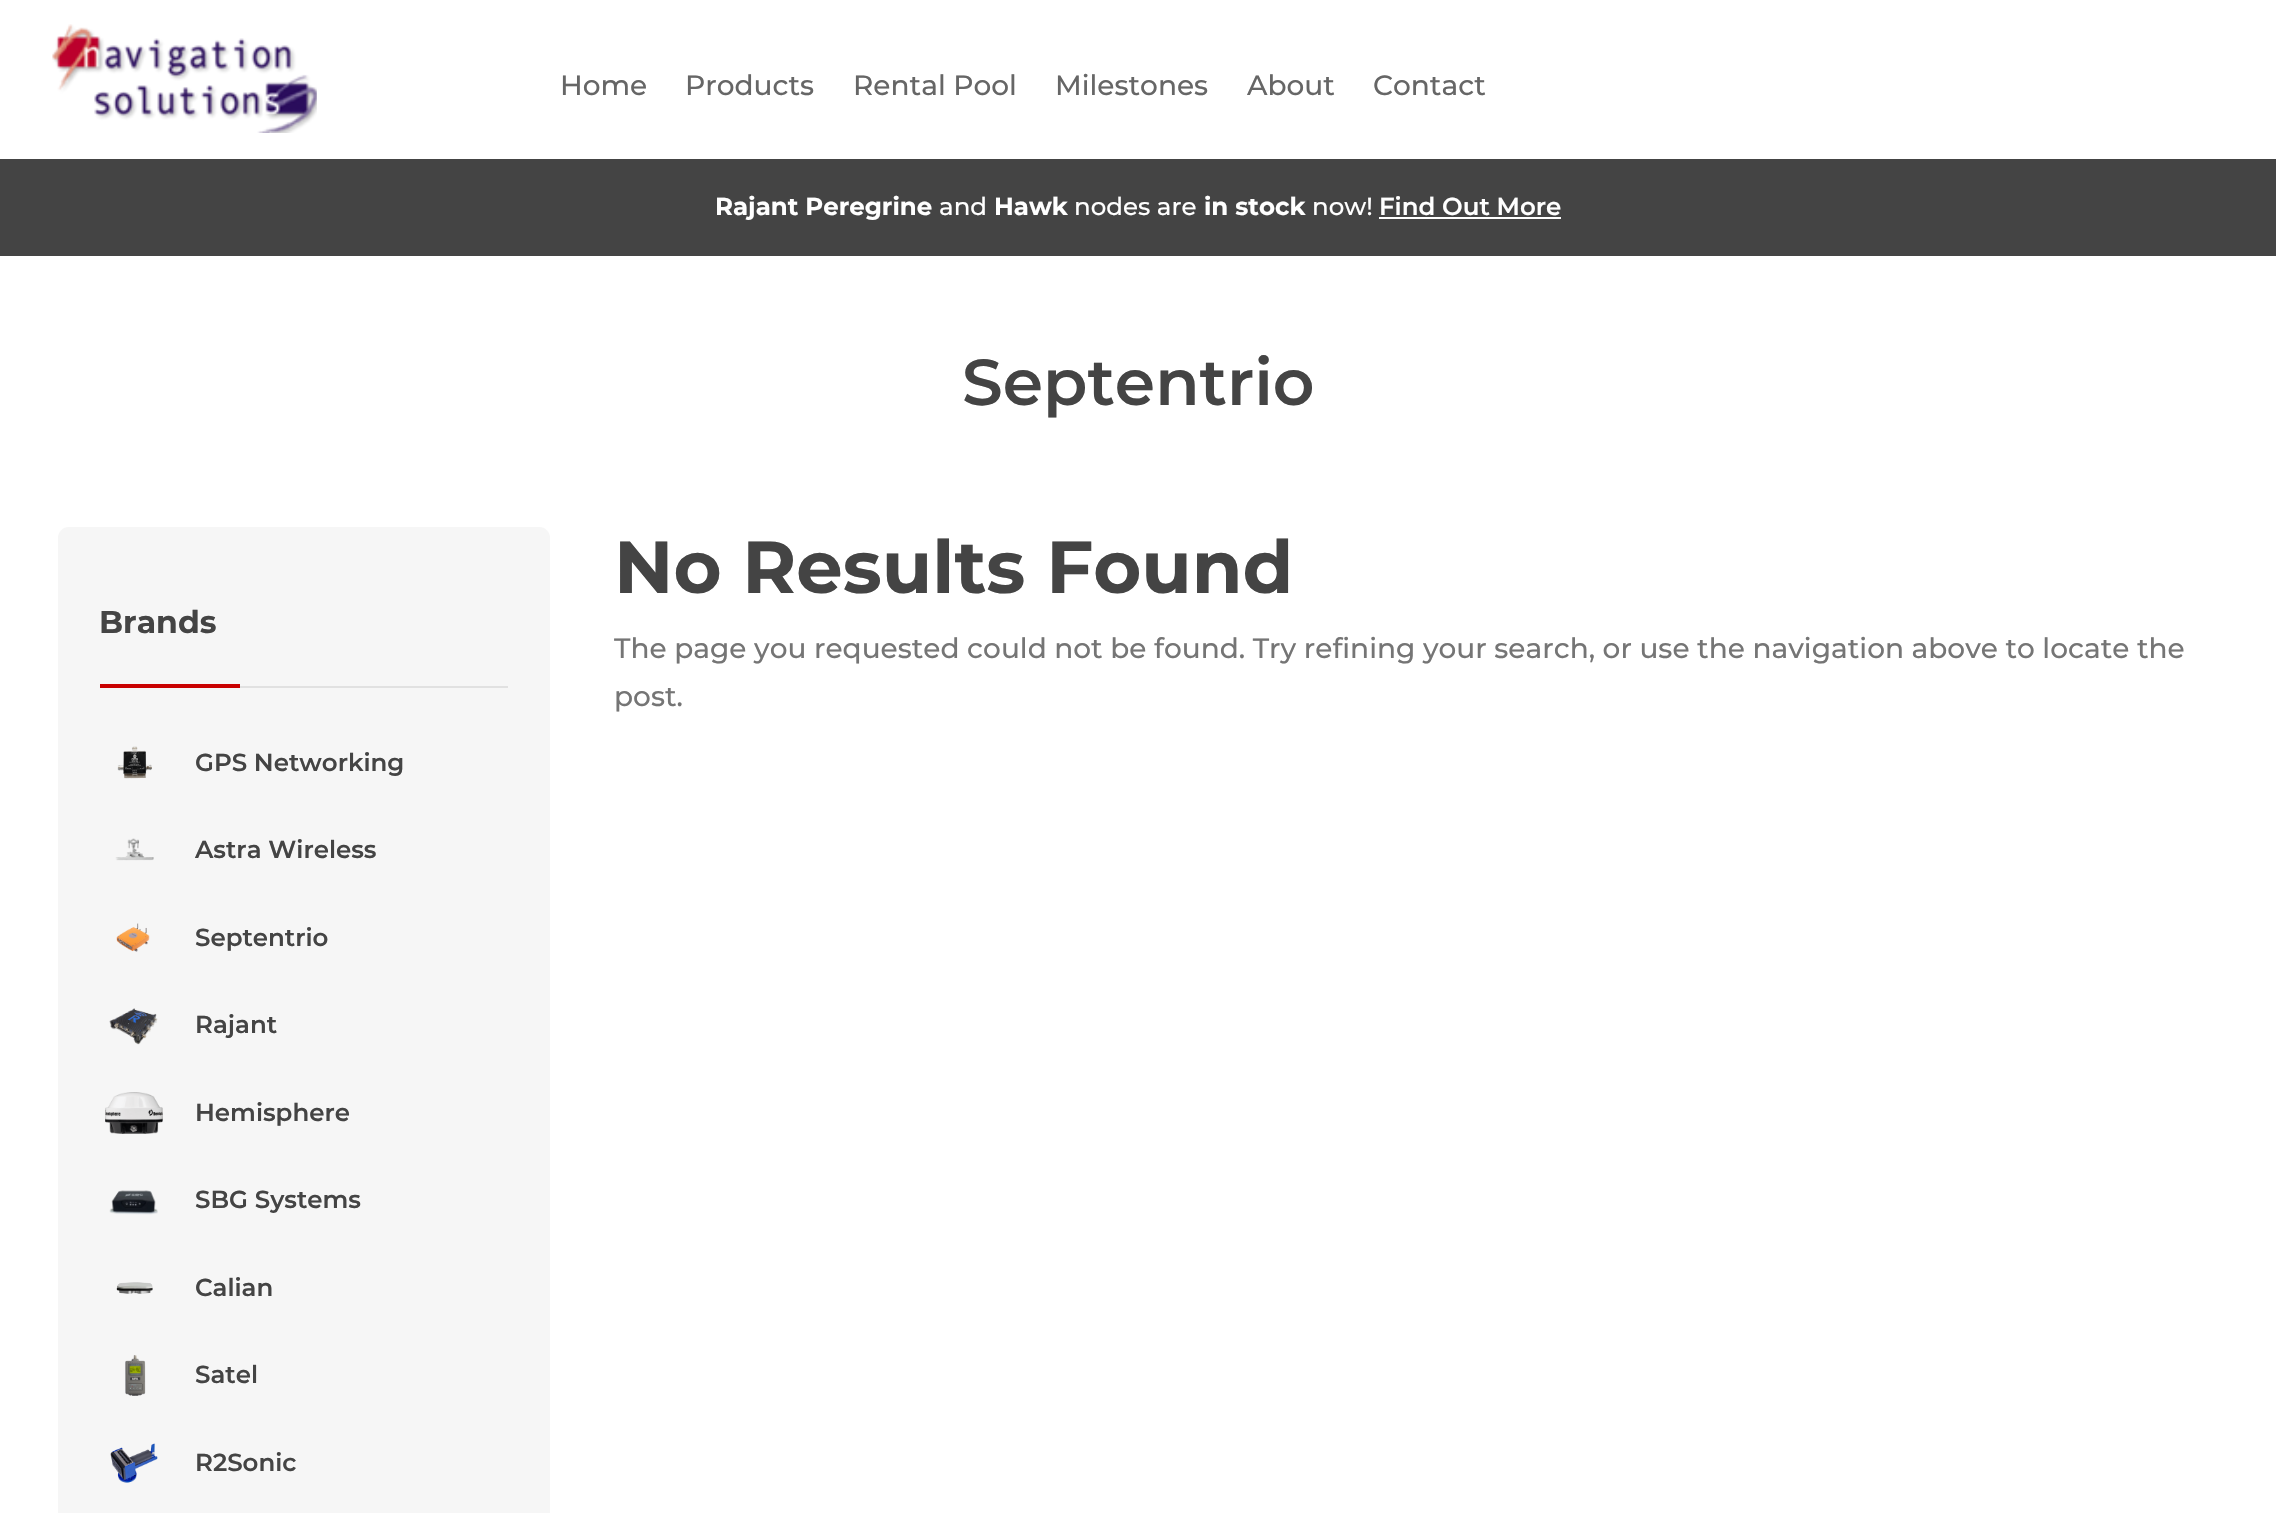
void draw(SkCanvas* canvas) {
  SkPaint paint;
  paint.setAntiAlias(true);
  auto face = [&](const char* family, int weight, float size, bool italic = false) {
    SkFontStyle style(weight, SkFontStyle::kNormal_Width,
      italic ? SkFontStyle::kItalic_Slant : SkFontStyle::kUpright_Slant);
    SkFont result(fontMgr->matchFamilyStyle(family, style), size);
    result.setSubpixel(true);
    return result;
  };
  auto paste = [&](const char* path, float x, float y, float w, float h) {
    auto image = SkImages::DeferredFromEncodedData(SkData::MakeFromFileName(path));
    canvas->drawImageRect(image, SkRect::MakeXYWH(x, y, w, h), SkSamplingOptions());
  };
  canvas->clear(0xffffffff);
  paste("img/1.png", 52, 24, 265, 109);
  paint.setColor(0xff444444);
  canvas->drawRect(SkRect::MakeXYWH(0, 159, 2276, 97), paint);
  paint.setColor(0xffffffff);
  canvas->drawRect(SkRect::MakeXYWH(1379, 217, 182, 2), paint);
  paint.setColor(0xfff6f6f6);
  canvas->drawRoundRect(SkRect::MakeXYWH(58, 527, 492, 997), 11, 11, paint);
  paint.setColor(0xffe1e1e1);
  canvas->drawRect(SkRect::MakeXYWH(240, 686, 268, 2), paint);
  paint.setColor(0xffc90000);
  canvas->drawRect(SkRect::MakeXYWH(100, 684, 140, 4), paint);
  paste("img/2.png", 117, 746, 35, 33);
  paste("img/3.png", 115, 838, 39, 23);
  paste("img/4.png", 116, 923, 34, 29);
  paste("img/5.png", 109, 1008, 49, 37);
  paste("img/6.png", 105, 1092, 58, 42);
  paste("img/7.png", 109, 1190, 49, 25);
  paste("img/8.png", 116, 1282, 37, 12);
  paste("img/9.png", 125, 1355, 21, 41);
  paste("img/10.png", 110, 1443, 48, 40);
  auto f0 = face("Montserrat", 500, 28);
  paint.setColor(0xff666666);
  {
    const struct { const char* s; float x, y; } items[] = {
      {"Home", 560, 95},
      {"Products", 685, 95},
      {"Rental Pool", 853, 95},
      {"Milestones", 1055, 95},
      {"About", 1247, 95},
      {"Contact", 1373, 95},
    };
    for (auto [s, x, y] : items) {
      canvas->drawString(s, x, y, f0, paint);
    }
  }
  auto f1 = face("Montserrat", 700, 24.5f);
  paint.setColor(0xffffffff);
  canvas->drawString("Rajant Peregrine", 715, 215, f1, paint);
  auto f2 = face("Montserrat", 500, 24.5f);
  canvas->drawString("and", 939, 215, f2, paint);
  canvas->drawString("Hawk", 994, 215, f1, paint);
  canvas->drawString("nodes are", 1074, 215, f2, paint);
  canvas->drawString("in stock", 1204, 215, f1, paint);
  canvas->drawString("now!", 1312, 215, f2, paint);
  auto f3 = face("Montserrat", 600, 24.5f);
  canvas->drawString("Find Out More", 1379, 215, f3, paint);
  auto f4 = face("Montserrat", 600, 64.75f);
  paint.setColor(0xff444444);
  canvas->drawString("Septentrio", 962, 405, f4, paint);
  auto f5 = face("Montserrat", 700, 31.5f);
  canvas->drawString("Brands", 99, 633, f5, paint);
  {
    const struct { const char* s; float x, y; } items[] = {
      {"GPS Networking", 195, 771},
      {"Astra Wireless", 195, 858},
      {"Septentrio", 195, 946},
      {"Rajant", 195, 1033},
      {"Hemisphere", 195, 1121},
      {"SBG Systems", 195, 1208},
      {"Calian", 195, 1296},
      {"Satel", 195, 1383},
      {"R2Sonic", 195, 1471},
    };
    for (auto [s, x, y] : items) {
      canvas->drawString(s, x, y, f3, paint);
    }
  }
  auto f6 = face("Montserrat", 700, 73.5f);
  canvas->drawString("No Results Found", 614, 593, f6, paint);
  paint.setColor(0xff757575);
  canvas->drawString("The page you requested could not be found. Try refining your search, or use the navigation above to locate the", 614, 658, f0, paint);
  canvas->drawString("post.", 614, 706, f0, paint);
}
